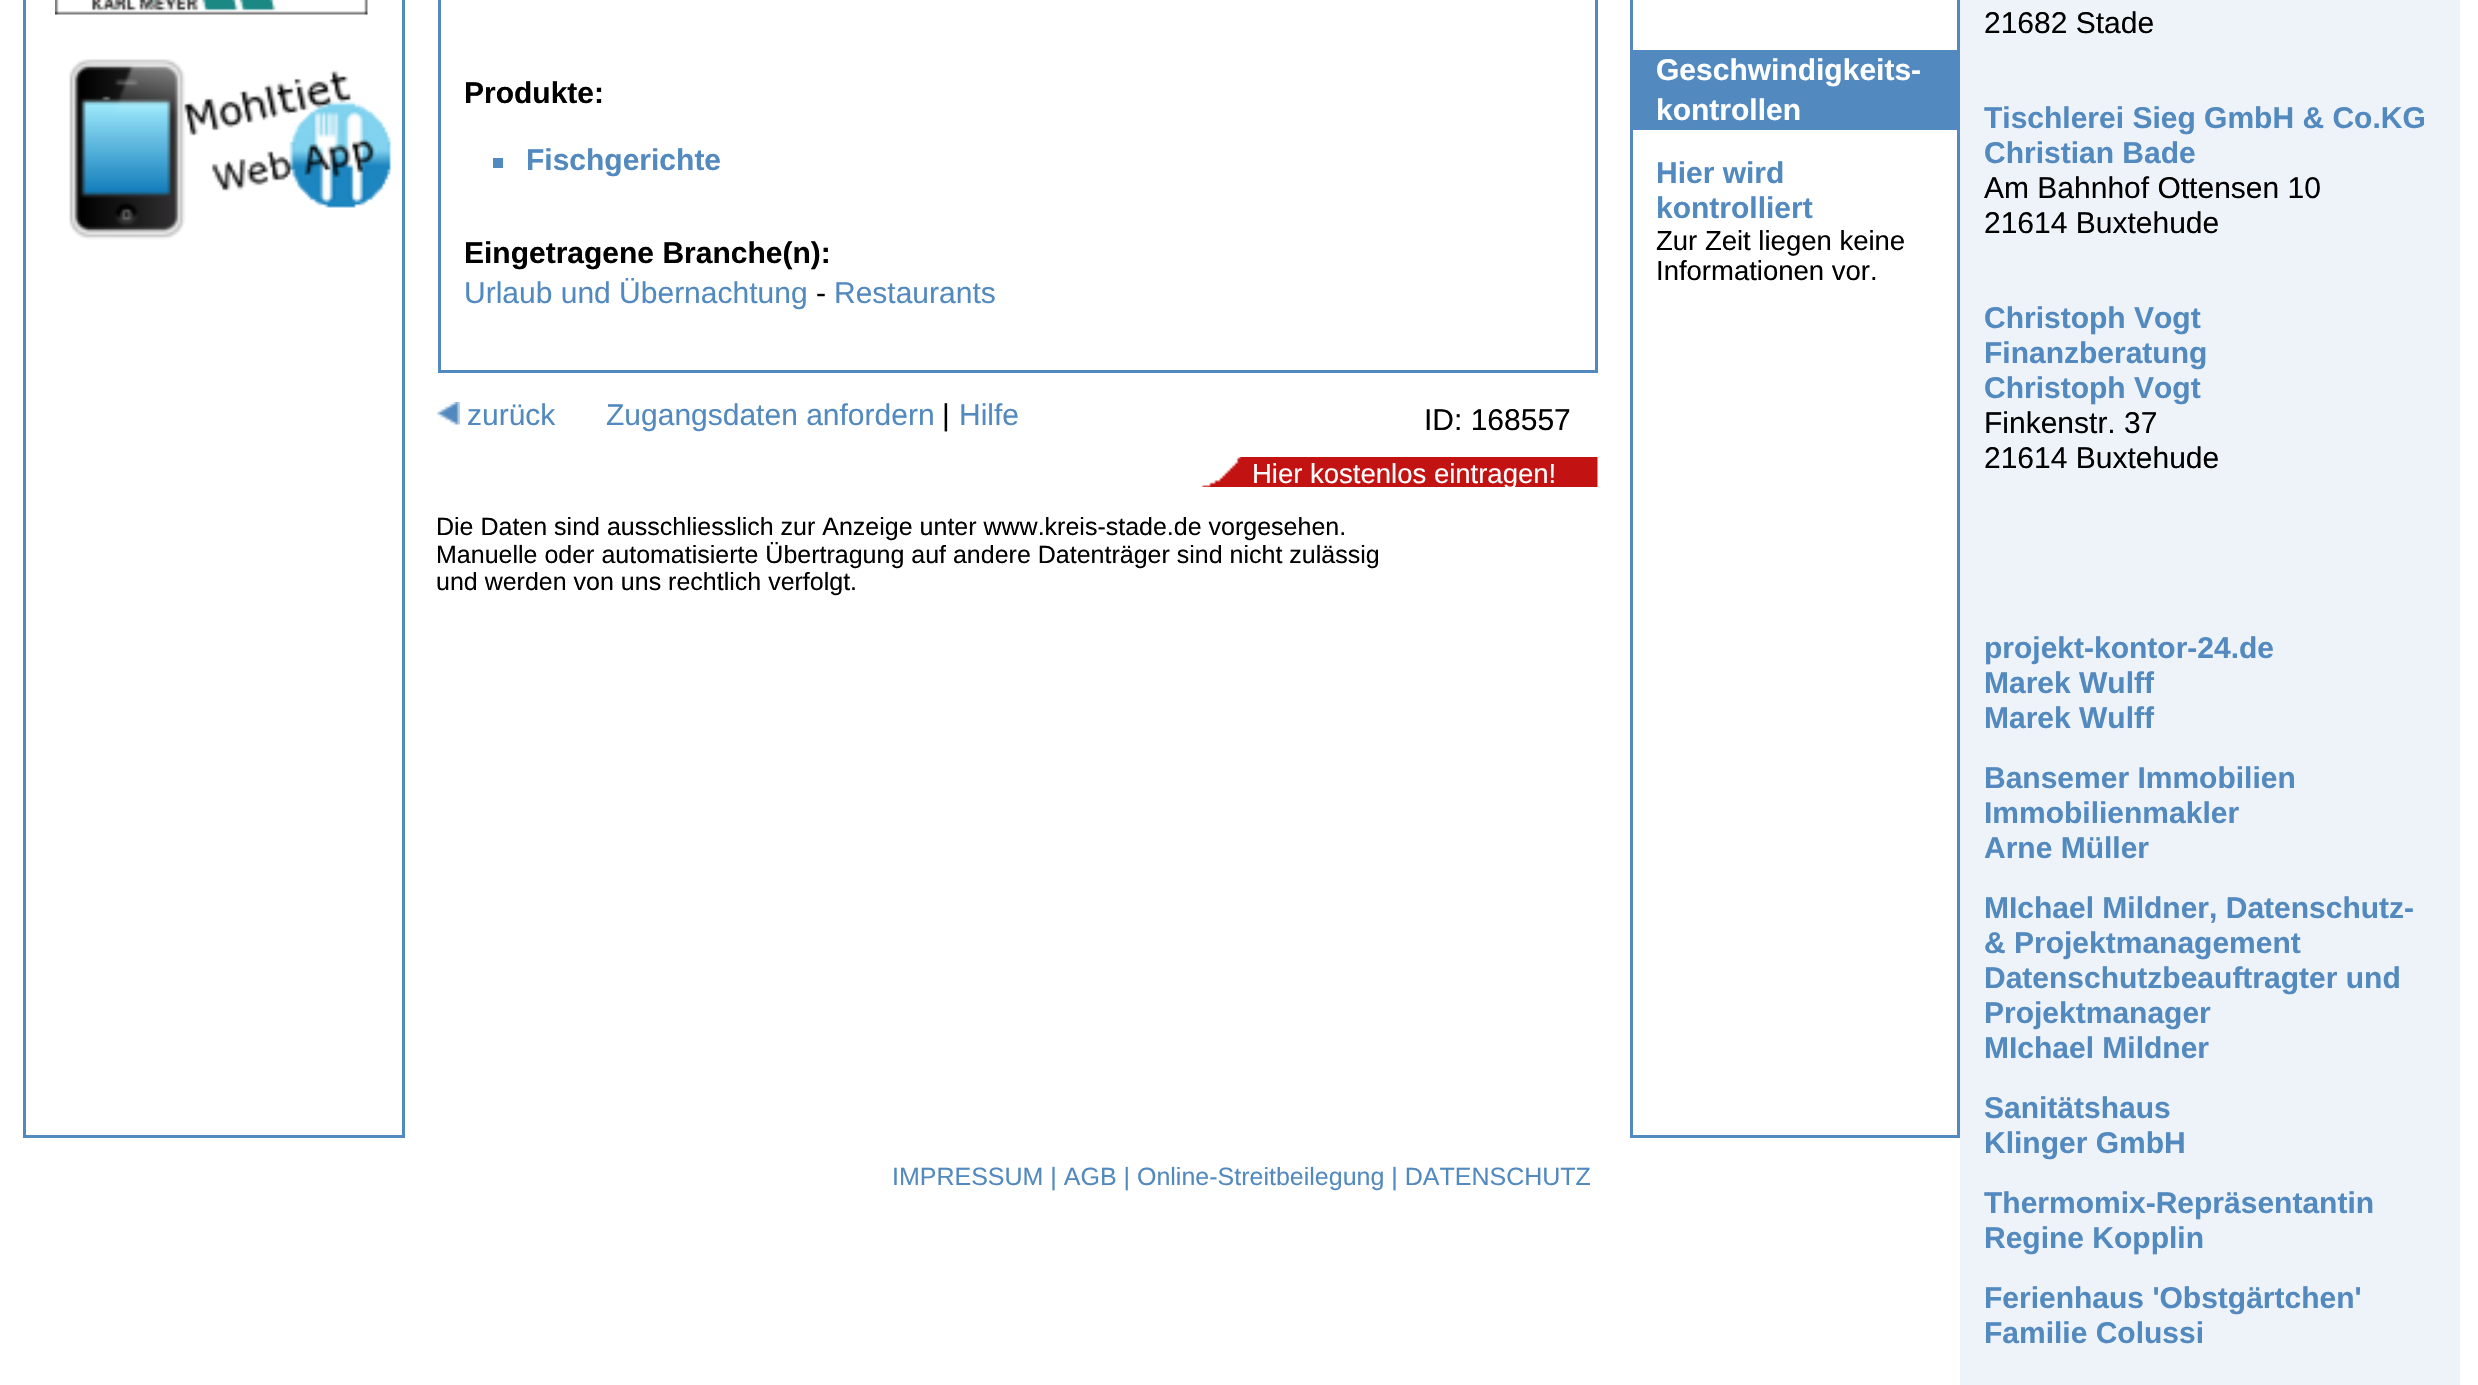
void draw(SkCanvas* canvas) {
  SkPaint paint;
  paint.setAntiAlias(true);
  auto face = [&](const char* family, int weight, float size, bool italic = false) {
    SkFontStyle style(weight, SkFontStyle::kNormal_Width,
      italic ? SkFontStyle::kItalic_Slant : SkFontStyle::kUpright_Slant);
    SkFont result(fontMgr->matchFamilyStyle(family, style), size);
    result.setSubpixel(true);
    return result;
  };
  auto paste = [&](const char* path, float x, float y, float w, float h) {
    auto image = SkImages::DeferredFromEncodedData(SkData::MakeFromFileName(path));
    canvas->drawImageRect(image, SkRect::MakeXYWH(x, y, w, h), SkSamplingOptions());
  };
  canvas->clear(0xffffffff);
  paint.setStroke(true);
  paint.setStrokeWidth(3);
  paint.setColor(0xff5289bf);
  canvas->drawRect(SkRect::MakeXYWH(24.5f, -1.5f, 379, 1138), paint);
  paste("img/1.png", 55, 0, 313, 15);
  paste("img/2.png", 69, 59, 324, 181);
  canvas->drawRect(SkRect::MakeXYWH(439.5f, -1.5f, 1157, 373), paint);
  paint.setStroke(false);
  canvas->drawRect(SkRect::MakeXYWH(493, 158, 10, 10), paint);
  paste("img/3.png", 437, 402, 23, 23);
  paste("img/4.png", 1201, 457, 397, 30);
  paint.setStroke(true);
  canvas->drawRect(SkRect::MakeXYWH(1631.5f, -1.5f, 327, 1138), paint);
  paint.setStroke(false);
  canvas->drawRect(SkRect::MakeXYWH(1633, 50, 324, 80), paint);
  paint.setColor(0xffedf3f9);
  canvas->drawRect(SkRect::MakeXYWH(1960, 0, 500, 1385), paint);
  auto f0 = face("Liberation Sans", 700, 30);
  paint.setColor(0xff000000);
  canvas->drawString("Produkte:", 464, 103, f0, paint);
  paint.setColor(0xff5289bf);
  canvas->drawString("Fischgerichte", 526, 170, f0, paint);
  paint.setColor(0xff000000);
  canvas->drawString("Eingetragene Branche(n):", 464, 263, f0, paint);
  auto f1 = face("Liberation Sans", 400, 30);
  paint.setColor(0xff5289bf);
  canvas->drawString("Urlaub und Übernachtung", 464, 303, f1, paint);
  paint.setColor(0xff000000);
  canvas->drawString("-", 816, 303, f1, paint);
  paint.setColor(0xff5289bf);
  {
    const struct { const char* s; float x, y; } items[] = {
      {"Restaurants", 834, 303},
      {"zurück", 467, 425},
      {"Zugangsdaten anfordern", 606, 425},
    };
    for (auto [s, x, y] : items) {
      canvas->drawString(s, x, y, f1, paint);
    }
  }
  paint.setColor(0xff000000);
  canvas->drawString("|", 942, 425, f1, paint);
  paint.setColor(0xff5289bf);
  canvas->drawString("Hilfe", 959, 425, f1, paint);
  paint.setColor(0xff000000);
  canvas->drawString("ID: 168557", 1424, 430, f1, paint);
  auto f2 = face("Liberation Sans", 400, 27.5f);
  paint.setColor(0xffffffff);
  canvas->drawString("Hier kostenlos eintragen!", 1252, 483, f2, paint);
  auto f3 = face("Liberation Sans", 400, 25);
  paint.setColor(0xff000000);
  {
    const struct { const char* s; float x, y; } items[] = {
      {"Die Daten sind ausschliesslich zur Anzeige unter www.kreis-stade.de vorgesehen.", 436, 535},
      {"Manuelle oder automatisierte Übertragung auf andere Datenträger sind nicht zulässig", 436, 563},
      {"und werden von uns rechtlich verfolgt.", 436, 590},
    };
    for (auto [s, x, y] : items) {
      canvas->drawString(s, x, y, f3, paint);
    }
  }
  paint.setColor(0xffffffff);
  canvas->drawString("Geschwindigkeits-", 1656, 80, f0, paint);
  canvas->drawString("kontrollen", 1656, 120, f0, paint);
  paint.setColor(0xff5289bf);
  canvas->drawString("Hier wird", 1656, 183, f0, paint);
  canvas->drawString("kontrolliert", 1656, 218, f0, paint);
  paint.setColor(0xff000000);
  canvas->drawString("Zur Zeit liegen keine", 1656, 250, f2, paint);
  canvas->drawString("Informationen vor.", 1656, 280, f2, paint);
  canvas->drawString("21682 Stade", 1984, 33, f1, paint);
  paint.setColor(0xff5289bf);
  canvas->drawString("Tischlerei Sieg GmbH & Co.KG", 1984, 128, f0, paint);
  canvas->drawString("Christian Bade", 1984, 163, f0, paint);
  paint.setColor(0xff000000);
  canvas->drawString("Am Bahnhof Ottensen 10", 1984, 198, f1, paint);
  canvas->drawString("21614 Buxtehude", 1984, 233, f1, paint);
  paint.setColor(0xff5289bf);
  {
    const struct { const char* s; float x, y; } items[] = {
      {"Christoph Vogt", 1984, 328},
      {"Finanzberatung", 1984, 363},
      {"Christoph Vogt", 1984, 398},
    };
    for (auto [s, x, y] : items) {
      canvas->drawString(s, x, y, f0, paint);
    }
  }
  paint.setColor(0xff000000);
  canvas->drawString("Finkenstr. 37", 1984, 433, f1, paint);
  canvas->drawString("21614 Buxtehude", 1984, 468, f1, paint);
  paint.setColor(0xff5289bf);
  {
    const struct { const char* s; float x, y; } items[] = {
      {"projekt-kontor-24.de", 1984, 658},
      {"Marek Wulff", 1984, 693},
      {"Marek Wulff", 1984, 728},
      {"Bansemer Immobilien", 1984, 788},
      {"Immobilienmakler", 1984, 823},
      {"Arne Müller", 1984, 858},
      {"MIchael Mildner, Datenschutz-", 1984, 918},
      {"& Projektmanagement", 1984, 953},
      {"Datenschutzbeauftragter und", 1984, 988},
      {"Projektmanager", 1984, 1023},
      {"MIchael Mildner", 1984, 1058},
      {"Sanitätshaus", 1984, 1118},
      {"Klinger GmbH", 1984, 1153},
      {"Thermomix-Repräsentantin", 1984, 1213},
      {"Regine Kopplin", 1984, 1248},
      {"Ferienhaus 'Obstgärtchen'", 1984, 1308},
      {"Familie Colussi", 1984, 1343},
    };
    for (auto [s, x, y] : items) {
      canvas->drawString(s, x, y, f0, paint);
    }
  }
  canvas->drawString("IMPRESSUM | AGB | Online-Streitbeilegung | DATENSCHUTZ", 892, 1185, f3, paint);
}
